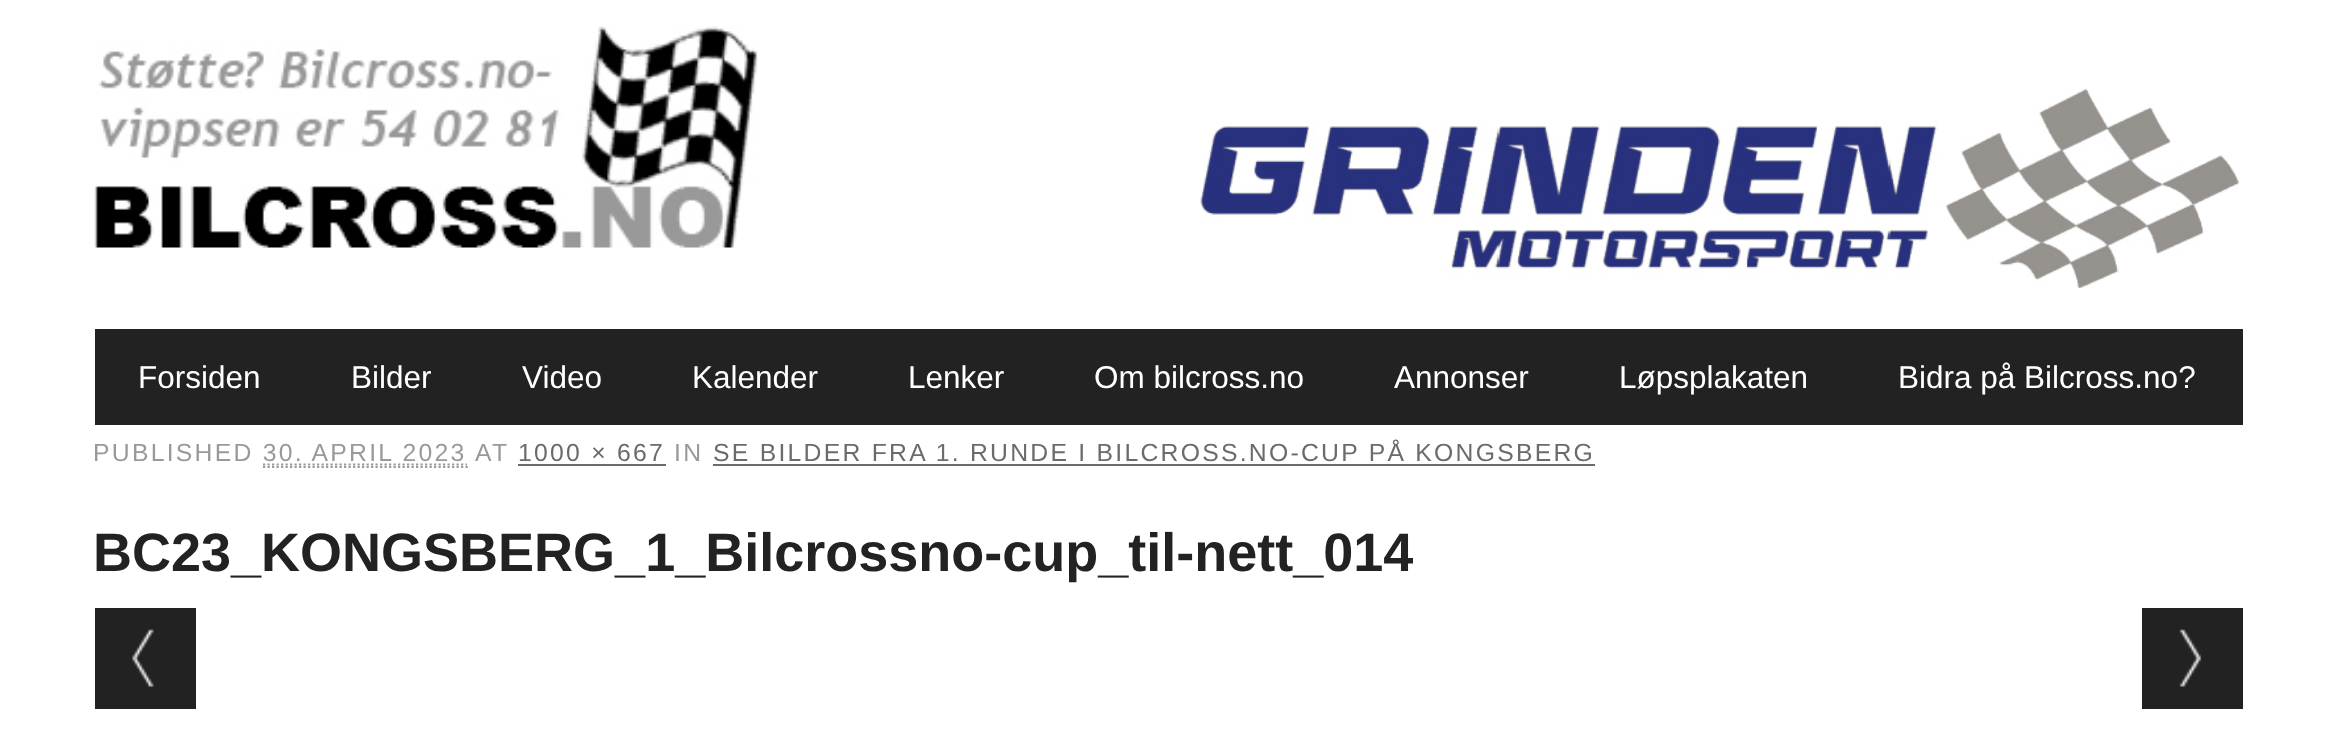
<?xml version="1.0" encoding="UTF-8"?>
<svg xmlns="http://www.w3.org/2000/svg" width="2336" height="731">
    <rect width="100%" height="100%" fill="#FFFFFF"/>
    <image x="94" y="26" width="664" height="222" href="img_01.png"/>
    <image x="1200" y="88" width="1040" height="201" href="img_02.png"/>
    <rect x="95" y="329" width="2148" height="96" fill="#222222"/>
    <text x="138" y="388" font-family="Liberation Sans" font-size="31.5" fill="#FFFFFF">Forsiden</text>
    <text x="351" y="388" font-family="Liberation Sans" font-size="31.5" fill="#FFFFFF">Bilder</text>
    <text x="522" y="388" font-family="Liberation Sans" font-size="31.5" fill="#FFFFFF">Video</text>
    <text x="692" y="388" font-family="Liberation Sans" font-size="31.5" fill="#FFFFFF">Kalender</text>
    <text x="908" y="388" font-family="Liberation Sans" font-size="31.5" fill="#FFFFFF">Lenker</text>
    <text x="1094" y="388" font-family="Liberation Sans" font-size="31.5" fill="#FFFFFF">Om bilcross.no</text>
    <text x="1394" y="388" font-family="Liberation Sans" font-size="31.5" fill="#FFFFFF">Annonser</text>
    <text x="1619" y="388" font-family="Liberation Sans" font-size="31.5" fill="#FFFFFF">Løpsplakaten</text>
    <text x="1898" y="388" font-family="Liberation Sans" font-size="31.5" fill="#FFFFFF">Bidra på Bilcross.no?</text>
    <text x="93" y="461" font-family="Liberation Sans" font-size="24.75" letter-spacing="2.25" fill="#999999">PUBLISHED 30. APRIL 2023</text>
    <text x="475" y="461" font-family="Liberation Sans" font-size="24.75" letter-spacing="2.25" fill="#999999">AT</text>
    <text x="518" y="461" font-family="Liberation Sans" font-size="24.75" letter-spacing="2.25" fill="#6B6B6B">1000 × 667</text>
    <rect x="518" y="464" width="148" height="2" fill="#6B6B6B"/>
    <text x="674" y="461" font-family="Liberation Sans" font-size="24.75" letter-spacing="2.25" fill="#999999">IN</text>
    <text x="713" y="461" font-family="Liberation Sans" font-size="24.75" letter-spacing="2.25" fill="#6B6B6B">SE BILDER FRA 1. RUNDE I BILCROSS.NO-CUP PÅ KONGSBERG</text>
    <rect x="713" y="464" width="882" height="2" fill="#6B6B6B"/>
    <path d="M 263 467 H 468" fill="none" stroke="#999999" stroke-width="2.2" stroke-dasharray="2.25 2.25"/>
    <path d="M 263 464.5 H 467" fill="none" stroke="#999999" stroke-width="2.2" stroke-dasharray="2.25 2.25"/>
    <text x="93" y="571" font-family="Liberation Sans" font-size="54" font-weight="700" fill="#222222">BC23_KONGSBERG_1_Bilcrossno-cup_til-nett_014</text>
    <rect x="95" y="608" width="101" height="101" fill="#222222"/>
    <image x="132" y="629" width="22" height="58" href="img_03.png"/>
    <rect x="2142" y="608" width="101" height="101" fill="#222222"/>
    <image x="2179" y="629" width="23" height="58" href="img_04.png"/>
</svg>
